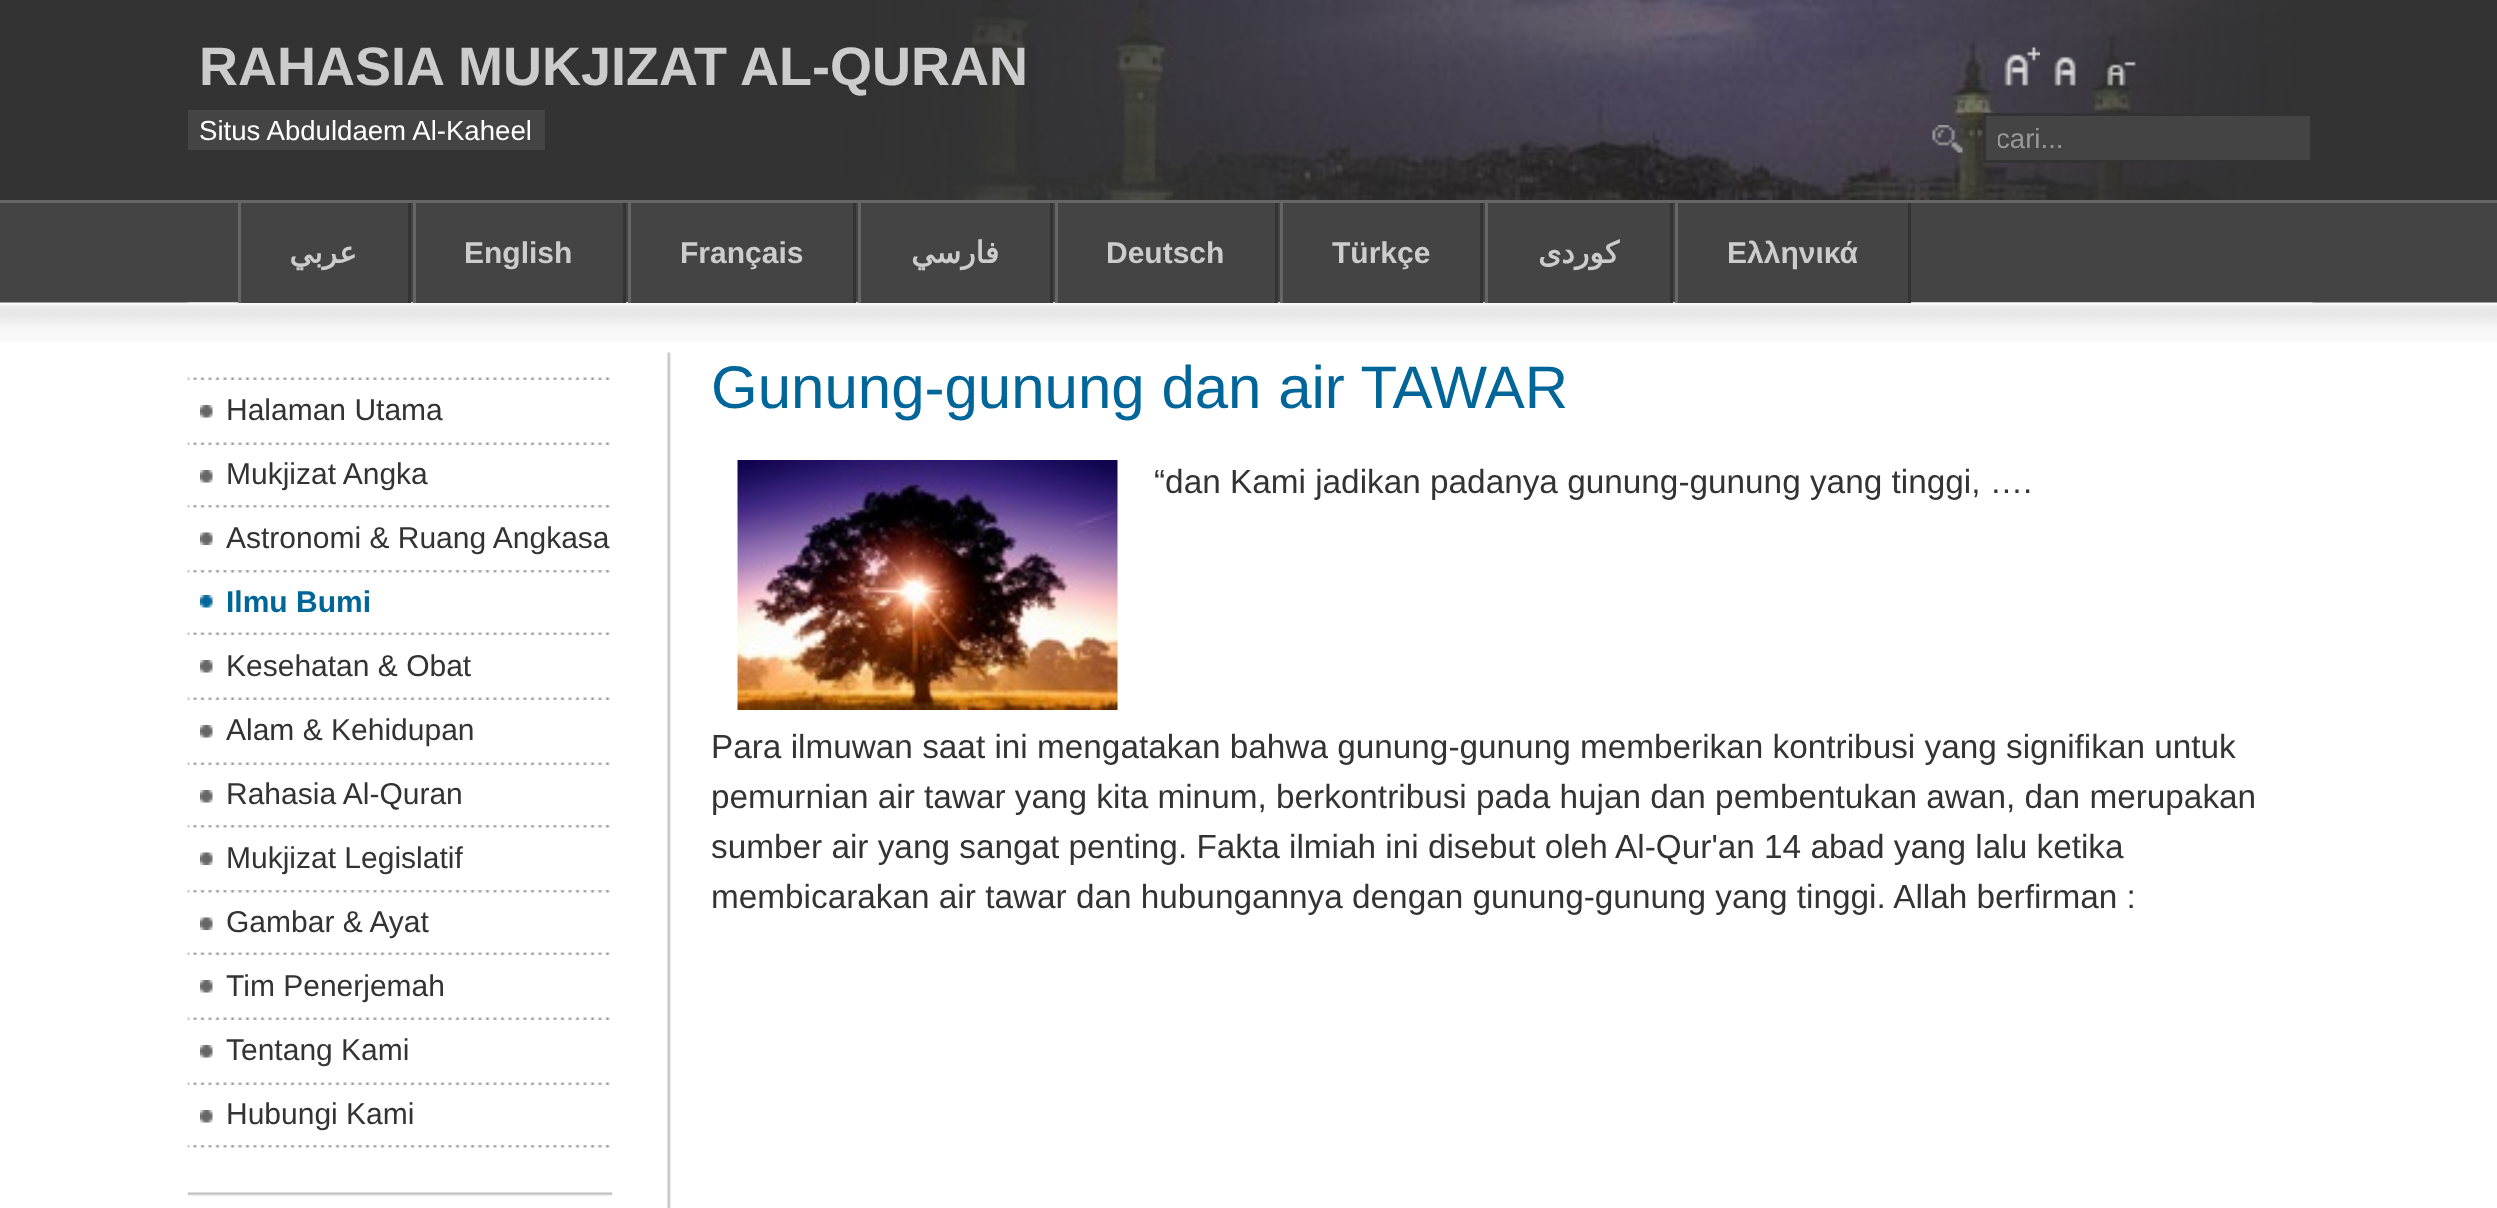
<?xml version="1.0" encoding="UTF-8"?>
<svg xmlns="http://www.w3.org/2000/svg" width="2497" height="1208">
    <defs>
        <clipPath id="clip1"><rect x="1998" y="123" width="300" height="30"/></clipPath>
    </defs>
    <rect width="100%" height="100%" fill="#FFFFFF"/>
    <rect x="0" y="0" width="2497" height="200" fill="#333333"/>
    <image x="824" y="0" width="1482" height="200" href="img_01.png"/>
    <image x="812" y="0" width="1501" height="200" href="img_02.png"/>
    <text x="199" y="85" font-family="Liberation Sans" font-size="54" font-weight="700" fill="#CCCCCC">RAHASIA MUKJIZAT AL-QURAN</text>
    <image x="2004" y="47" width="36" height="39" href="img_03.png"/>
    <image x="2054" y="56" width="22" height="30" href="img_04.png"/>
    <image x="2106" y="61" width="30" height="25" href="img_05.png"/>
    <rect x="188" y="110" width="357" height="40" fill="#444444"/>
    <text x="199" y="140" font-family="Liberation Sans" font-size="27.6" fill="#FFFFFF">Situs Abduldaem Al-Kaheel</text>
    <image x="1932" y="125" width="31" height="28" href="img_06.png"/>
    <rect x="1984.5" y="114.5" width="327" height="47" fill="#444444" stroke="#333333" stroke-width="3"/>
    <g clip-path="url(#clip1)">
        <text x="1996" y="148" font-family="Liberation Sans" font-size="27.6" fill="#999999">cari...</text>
    </g>
    <rect x="0" y="203" width="2497" height="100" fill="#444444"/>
    <rect x="0" y="200" width="2497" height="3" fill="#666666"/>
    <image x="0" y="302" width="2497" height="40" href="img_07.png"/>
    <image x="187" y="302" width="2126" height="1" href="img_08.png"/>
    <rect x="241" y="302" width="167" height="1" fill="#444444"/>
    <rect x="408" y="203" width="3" height="100" fill="#333333"/>
    <rect x="238" y="203" width="3" height="100" fill="#666666"/>
    <text x="357" y="263" font-family="DejaVu Sans" font-size="30" font-weight="700" direction="rtl" fill="#CCCCCC">عربي</text>
    <rect x="416" y="302" width="207" height="1" fill="#444444"/>
    <rect x="623" y="203" width="3" height="100" fill="#333333"/>
    <rect x="413" y="203" width="3" height="100" fill="#666666"/>
    <text x="464" y="263" font-family="Liberation Sans" font-size="30" font-weight="700" fill="#CCCCCC">English</text>
    <rect x="631" y="302" width="222" height="1" fill="#444444"/>
    <rect x="853" y="203" width="3" height="100" fill="#333333"/>
    <rect x="628" y="203" width="3" height="100" fill="#666666"/>
    <text x="680" y="263" font-family="Liberation Sans" font-size="30" font-weight="700" fill="#CCCCCC">Français</text>
    <rect x="861" y="302" width="189" height="1" fill="#444444"/>
    <rect x="1050" y="203" width="3" height="100" fill="#333333"/>
    <rect x="858" y="203" width="3" height="100" fill="#666666"/>
    <text x="999" y="263" font-family="DejaVu Sans" font-size="30" font-weight="700" direction="rtl" fill="#CCCCCC">فارسي</text>
    <rect x="1058" y="302" width="217" height="1" fill="#444444"/>
    <rect x="1275" y="203" width="3" height="100" fill="#333333"/>
    <rect x="1055" y="203" width="3" height="100" fill="#666666"/>
    <text x="1106" y="263" font-family="Liberation Sans" font-size="30" font-weight="700" fill="#CCCCCC">Deutsch</text>
    <rect x="1283" y="302" width="197" height="1" fill="#444444"/>
    <rect x="1480" y="203" width="3" height="100" fill="#333333"/>
    <rect x="1280" y="203" width="3" height="100" fill="#666666"/>
    <text x="1332" y="263" font-family="Liberation Sans" font-size="30" font-weight="700" fill="#CCCCCC">Türkçe</text>
    <rect x="1488" y="302" width="182" height="1" fill="#444444"/>
    <rect x="1670" y="203" width="3" height="100" fill="#333333"/>
    <rect x="1485" y="203" width="3" height="100" fill="#666666"/>
    <text x="1619" y="263" font-family="DejaVu Sans" font-size="30" font-weight="700" direction="rtl" fill="#CCCCCC">كوردى</text>
    <rect x="1678" y="302" width="230" height="1" fill="#444444"/>
    <rect x="1908" y="203" width="3" height="100" fill="#333333"/>
    <rect x="1675" y="203" width="3" height="100" fill="#666666"/>
    <text x="1727" y="263" font-family="Liberation Sans" font-size="30" font-weight="700" fill="#CCCCCC">Ελληνικά</text>
    <image x="667" y="352" width="4" height="856" href="img_09.png"/>
    <image x="187" y="1192" width="426" height="4" href="img_10.png"/>
    <image x="187" y="377" width="423" height="3" href="img_11.png"/>
    <image x="187" y="442" width="423" height="3" href="img_11.png"/>
    <image x="200" y="405" width="13" height="13" href="img_12.png"/>
    <text x="226" y="420" font-family="Liberation Sans" font-size="30" fill="#333333">Halaman Utama</text>
    <image x="187" y="505" width="423" height="3" href="img_13.png"/>
    <image x="200" y="470" width="13" height="13" href="img_12.png"/>
    <text x="226" y="484" font-family="Liberation Sans" font-size="30" fill="#333333">Mukjizat Angka</text>
    <image x="187" y="570" width="423" height="3" href="img_13.png"/>
    <image x="200" y="532" width="13" height="13" href="img_14.png"/>
    <text x="226" y="548" font-family="Liberation Sans" font-size="30" fill="#333333">Astronomi &amp; Ruang Angkasa</text>
    <image x="187" y="632" width="423" height="3" href="img_11.png"/>
    <image x="200" y="595" width="13" height="13" href="img_15.png"/>
    <text x="226" y="612" font-family="Liberation Sans" font-size="30" font-weight="700" fill="#006699">Ilmu Bumi</text>
    <image x="187" y="697" width="423" height="3" href="img_11.png"/>
    <image x="200" y="660" width="13" height="13" href="img_12.png"/>
    <text x="226" y="676" font-family="Liberation Sans" font-size="30" fill="#333333">Kesehatan &amp; Obat</text>
    <image x="187" y="762" width="423" height="3" href="img_11.png"/>
    <image x="200" y="725" width="13" height="13" href="img_12.png"/>
    <text x="226" y="740" font-family="Liberation Sans" font-size="30" fill="#333333">Alam &amp; Kehidupan</text>
    <image x="187" y="825" width="423" height="3" href="img_13.png"/>
    <image x="200" y="790" width="13" height="13" href="img_12.png"/>
    <text x="226" y="804" font-family="Liberation Sans" font-size="30" fill="#333333">Rahasia Al-Quran</text>
    <image x="187" y="890" width="423" height="3" href="img_13.png"/>
    <image x="200" y="852" width="13" height="13" href="img_14.png"/>
    <text x="226" y="868" font-family="Liberation Sans" font-size="30" fill="#333333">Mukjizat Legislatif</text>
    <image x="187" y="952" width="423" height="3" href="img_11.png"/>
    <image x="200" y="917" width="13" height="13" href="img_14.png"/>
    <text x="226" y="932" font-family="Liberation Sans" font-size="30" fill="#333333">Gambar &amp; Ayat</text>
    <image x="187" y="1017" width="423" height="3" href="img_11.png"/>
    <image x="200" y="980" width="13" height="13" href="img_12.png"/>
    <text x="226" y="996" font-family="Liberation Sans" font-size="30" fill="#333333">Tim Penerjemah</text>
    <image x="187" y="1082" width="423" height="3" href="img_11.png"/>
    <image x="200" y="1045" width="13" height="13" href="img_12.png"/>
    <text x="226" y="1060" font-family="Liberation Sans" font-size="30" fill="#333333">Tentang Kami</text>
    <image x="187" y="1145" width="423" height="3" href="img_13.png"/>
    <image x="200" y="1110" width="13" height="13" href="img_12.png"/>
    <text x="226" y="1124" font-family="Liberation Sans" font-size="30" fill="#333333">Hubungi Kami</text>
    <text x="711" y="408" font-family="Liberation Sans" font-size="60" fill="#006699">Gunung-gunung dan air TAWAR</text>
    <image x="737" y="460" width="381" height="250" href="img_16.png"/>
    <text x="1154" y="493" font-family="Liberation Sans" font-size="33.35" fill="#333333">“dan Kami jadikan padanya gunung-gunung yang tinggi, ….</text>
    <text font-family="Liberation Sans" font-size="33.35" fill="#333333">
        <tspan x="711" y="758">Para ilmuwan saat ini mengatakan bahwa gunung-gunung memberikan kontribusi yang signifikan untuk</tspan>
        <tspan x="711" y="808">pemurnian air tawar yang kita minum, berkontribusi pada hujan dan pembentukan awan, dan merupakan</tspan>
        <tspan x="711" y="858">sumber air yang sangat penting. Fakta ilmiah ini disebut oleh Al-Qur'an 14 abad yang lalu ketika</tspan>
        <tspan x="711" y="908">membicarakan air tawar dan hubungannya dengan gunung-gunung yang tinggi. Allah berfirman :</tspan>
    </text>
</svg>
